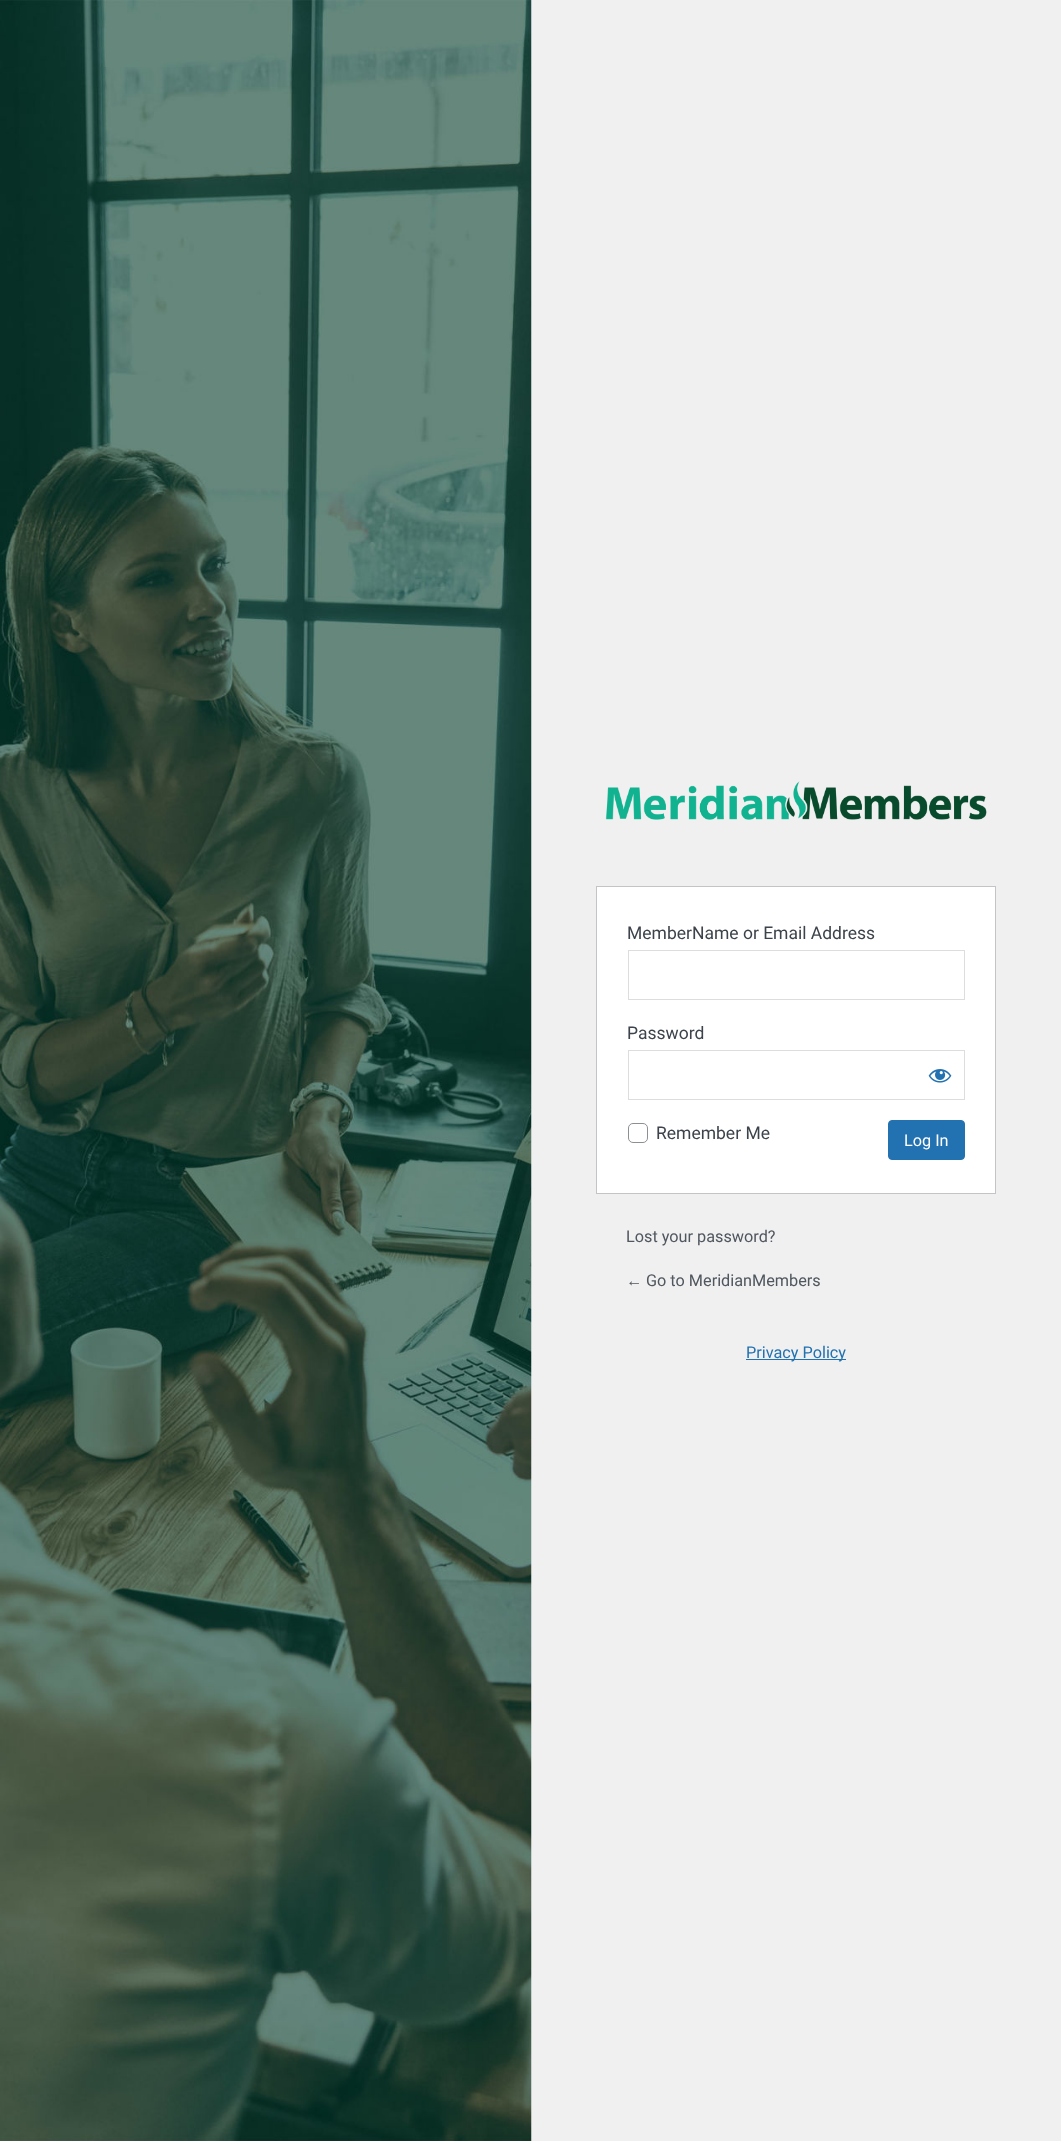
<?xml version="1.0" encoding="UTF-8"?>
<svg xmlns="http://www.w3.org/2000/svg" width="1061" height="2141">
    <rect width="100%" height="100%" fill="#F0F0F1"/>
    <image x="0" y="0" width="532" height="2141" href="img_01.png"/>
    <image x="605" y="781" width="382" height="39" href="img_02.png"/>
    <rect x="596.5" y="886.5" width="399" height="307" fill="#FFFFFF" stroke="#C3C4C7"/>
    <text x="627" y="939" font-family="Roboto" font-size="17.5" fill="#3C434A">MemberName or Email Address</text>
    <rect x="628.5" y="950.5" width="336" height="49" fill="none" stroke="#DDDDDD"/>
    <text x="627" y="1039" font-family="Roboto" font-size="17.5" fill="#3C434A">Password</text>
    <rect x="628.5" y="1050.5" width="336" height="49" fill="none" stroke="#DDDDDD"/>
    <image x="928" y="1069" width="24" height="14" href="img_03.png"/>
    <rect x="628.5" y="1123.5" width="19" height="19" rx="4.5" fill="none" stroke="#8C8F94"/>
    <text x="656" y="1139" font-family="Roboto" font-size="17.5" fill="#3C434A">Remember Me</text>
    <rect x="888.5" y="1120.5" width="76" height="39" rx="3.5" fill="#2271B1" stroke="#2271B1"/>
    <text x="904" y="1146" font-family="Roboto" font-size="16.25" fill="#FFFFFF">Log In</text>
    <text x="626" y="1242" font-family="Roboto" font-size="16.25" fill="#50575E">Lost your password?</text>
    <text x="626" y="1286" font-family="Liberation Sans" font-size="16.25" fill="#50575E">←</text>
    <text x="646" y="1286" font-family="Roboto" font-size="16.25" fill="#50575E">Go to MeridianMembers</text>
    <rect x="746" y="1359" width="100" height="1" fill="#2271B1"/>
    <text x="746" y="1358" font-family="Roboto" font-size="16.25" fill="#2271B1">Privacy Policy</text>
</svg>
